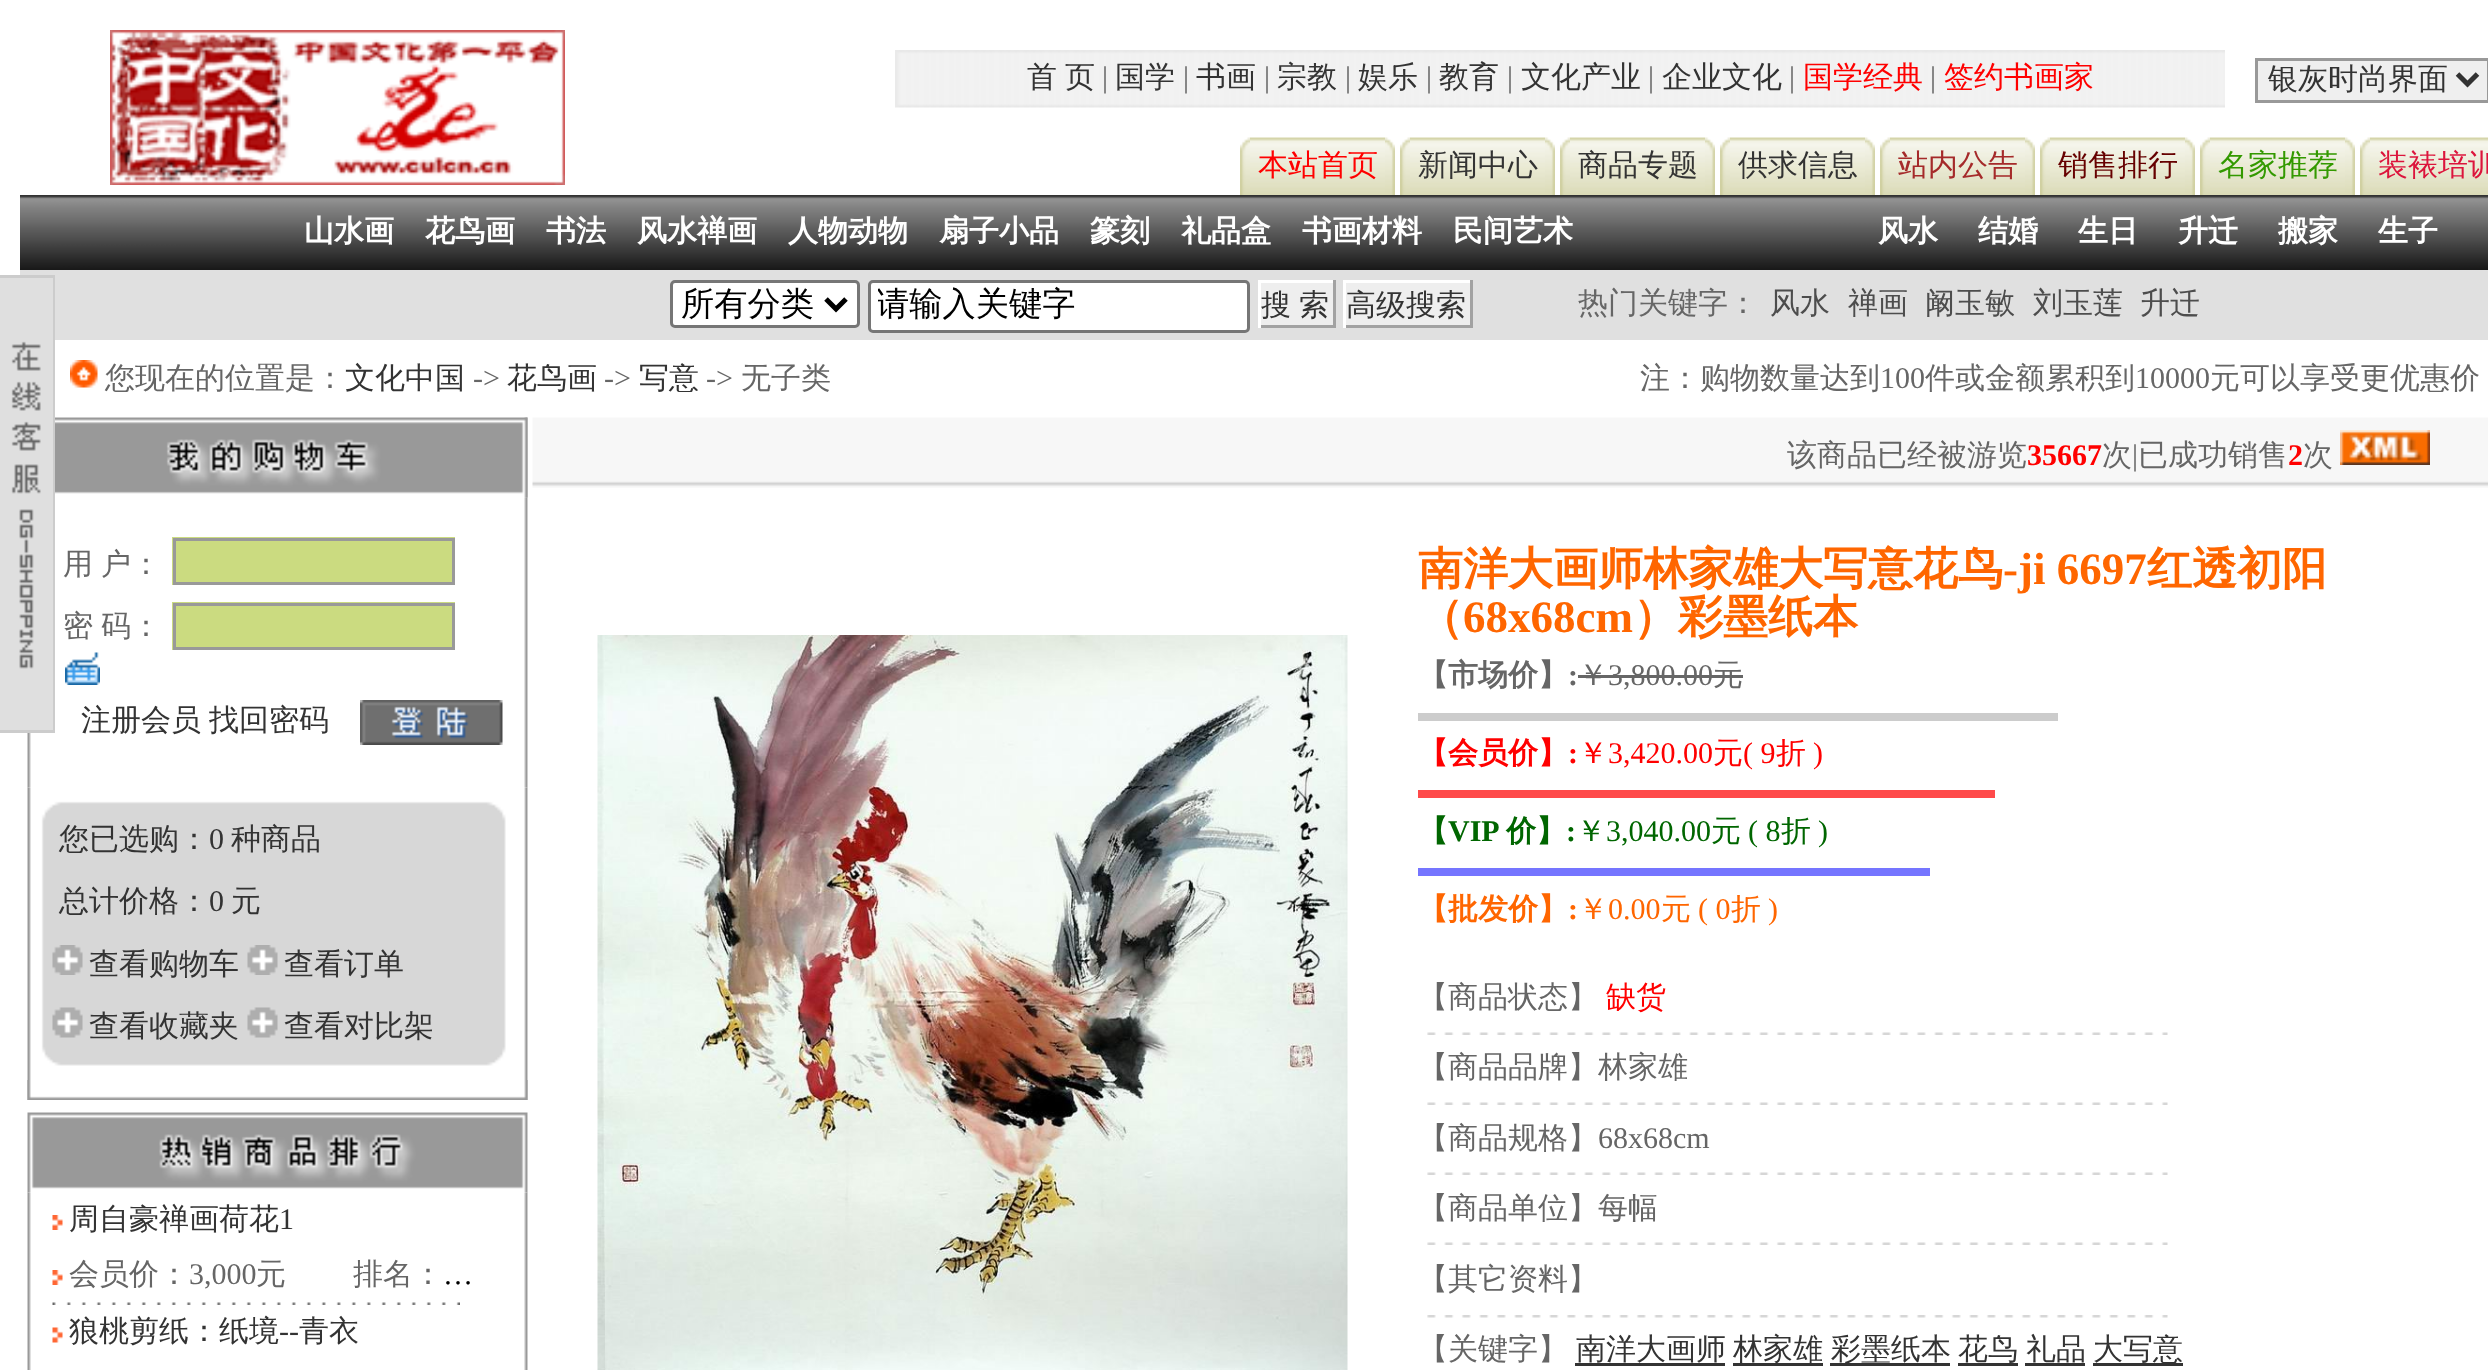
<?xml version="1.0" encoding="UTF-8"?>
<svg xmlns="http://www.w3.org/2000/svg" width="2488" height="1370">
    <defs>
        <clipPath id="clip1"><rect x="878" y="285" width="362" height="43"/></clipPath>
    </defs>
    <rect width="100%" height="100%" fill="#FFFFFF"/>
    <image x="110" y="30" width="455" height="155" href="img_01.png"/>
    <image x="895" y="50" width="1330" height="58" href="img_02.png"/>
    <text x="1027" y="87" word-spacing="-1" font-family="WenQuanYi Zen Hei" font-size="30" font-weight="500" fill="#333333">首 页</text>
    <text x="1102" y="87" font-family="Liberation Serif" font-size="30" fill="#666666">|</text>
    <text x="1115" y="87" font-family="WenQuanYi Zen Hei" font-size="30" font-weight="500" fill="#333333">国学</text>
    <text x="1183" y="87" font-family="Liberation Serif" font-size="30" fill="#666666">|</text>
    <text x="1196" y="87" font-family="WenQuanYi Zen Hei" font-size="30" font-weight="500" fill="#333333">书画</text>
    <text x="1264" y="87" font-family="Liberation Serif" font-size="30" fill="#666666">|</text>
    <text x="1277" y="87" font-family="WenQuanYi Zen Hei" font-size="30" font-weight="500" fill="#333333">宗教</text>
    <text x="1345" y="87" font-family="Liberation Serif" font-size="30" fill="#666666">|</text>
    <text x="1358" y="87" font-family="WenQuanYi Zen Hei" font-size="30" font-weight="500" fill="#333333">娱乐</text>
    <text x="1426" y="87" font-family="Liberation Serif" font-size="30" fill="#666666">|</text>
    <text x="1439" y="87" font-family="WenQuanYi Zen Hei" font-size="30" font-weight="500" fill="#333333">教育</text>
    <text x="1507" y="87" font-family="Liberation Serif" font-size="30" fill="#666666">|</text>
    <text x="1521" y="87" font-family="WenQuanYi Zen Hei" font-size="30" font-weight="500" fill="#333333">文化产业</text>
    <text x="1648" y="87" font-family="Liberation Serif" font-size="30" fill="#666666">|</text>
    <text x="1662" y="87" font-family="WenQuanYi Zen Hei" font-size="30" font-weight="500" fill="#333333">企业文化</text>
    <text x="1789" y="87" font-family="Liberation Serif" font-size="30" fill="#666666">|</text>
    <text x="1803" y="87" font-family="WenQuanYi Zen Hei" font-size="30" font-weight="500" fill="#FF0000">国学经典</text>
    <text x="1930" y="87" font-family="Liberation Serif" font-size="30" fill="#666666">|</text>
    <text x="1944" y="87" font-family="WenQuanYi Zen Hei" font-size="30" font-weight="500" fill="#FF0000">签约书画家</text>
    <rect x="2256.5" y="59.5" width="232" height="42" fill="#EFEFEF" stroke="#999999" stroke-width="3"/>
    <path d="M 2457.5 74 L 2467.5 84 L 2477.5 74" fill="none" stroke="#333333" stroke-width="5"/>
    <text x="2268" y="89" font-family="WenQuanYi Zen Hei" font-size="30" font-weight="500" fill="#333333">银灰时尚界面</text>
    <image x="1240" y="137" width="10" height="58" href="img_03.png"/>
    <image x="1250" y="137" width="135" height="58" href="img_04.png"/>
    <text x="1258" y="175" font-family="WenQuanYi Zen Hei" font-size="30" font-weight="500" fill="#FF0000">本站首页</text>
    <image x="1385" y="137" width="10" height="58" href="img_05.png"/>
    <image x="1400" y="137" width="10" height="58" href="img_03.png"/>
    <image x="1410" y="137" width="135" height="58" href="img_04.png"/>
    <text x="1418" y="175" font-family="WenQuanYi Zen Hei" font-size="30" font-weight="500" fill="#333333">新闻中心</text>
    <image x="1545" y="137" width="10" height="58" href="img_06.png"/>
    <image x="1560" y="137" width="10" height="58" href="img_07.png"/>
    <image x="1570" y="137" width="135" height="58" href="img_04.png"/>
    <text x="1578" y="175" font-family="WenQuanYi Zen Hei" font-size="30" font-weight="500" fill="#333333">商品专题</text>
    <image x="1705" y="137" width="10" height="58" href="img_06.png"/>
    <image x="1720" y="137" width="10" height="58" href="img_07.png"/>
    <image x="1730" y="137" width="135" height="58" href="img_04.png"/>
    <text x="1738" y="175" font-family="WenQuanYi Zen Hei" font-size="30" font-weight="500" fill="#333333">供求信息</text>
    <image x="1865" y="137" width="10" height="58" href="img_05.png"/>
    <image x="1880" y="137" width="10" height="58" href="img_03.png"/>
    <image x="1890" y="137" width="135" height="58" href="img_04.png"/>
    <text x="1898" y="175" font-family="WenQuanYi Zen Hei" font-size="30" font-weight="500" fill="#A52A2A">站内公告</text>
    <image x="2025" y="137" width="10" height="58" href="img_06.png"/>
    <image x="2040" y="137" width="10" height="58" href="img_03.png"/>
    <image x="2050" y="137" width="135" height="58" href="img_04.png"/>
    <text x="2058" y="175" font-family="WenQuanYi Zen Hei" font-size="30" font-weight="500" fill="#660000">销售排行</text>
    <image x="2185" y="137" width="10" height="58" href="img_05.png"/>
    <image x="2200" y="137" width="10" height="58" href="img_07.png"/>
    <image x="2210" y="137" width="135" height="58" href="img_04.png"/>
    <text x="2218" y="175" font-family="WenQuanYi Zen Hei" font-size="30" font-weight="500" fill="#339900">名家推荐</text>
    <image x="2345" y="137" width="10" height="58" href="img_05.png"/>
    <image x="2360" y="137" width="10" height="58" href="img_03.png"/>
    <image x="2370" y="137" width="118" height="58" href="img_08.png"/>
    <text x="2378" y="175" font-family="WenQuanYi Zen Hei" font-size="30" font-weight="500" fill="#DC143C">装裱培训</text>
    <image x="20" y="195" width="2468" height="75" href="img_09.png"/>
    <text x="304" y="241" font-family="WenQuanYi Zen Hei" font-size="30" font-weight="700" fill="#FFFFFF">山水画</text>
    <text x="425" y="241" font-family="WenQuanYi Zen Hei" font-size="30" font-weight="700" fill="#FFFFFF">花鸟画</text>
    <text x="546" y="241" font-family="WenQuanYi Zen Hei" font-size="30" font-weight="700" fill="#FFFFFF">书法</text>
    <text x="637" y="241" font-family="WenQuanYi Zen Hei" font-size="30" font-weight="700" fill="#FFFFFF">风水禅画</text>
    <text x="788" y="241" font-family="WenQuanYi Zen Hei" font-size="30" font-weight="700" fill="#FFFFFF">人物动物</text>
    <text x="939" y="241" font-family="WenQuanYi Zen Hei" font-size="30" font-weight="700" fill="#FFFFFF">扇子小品</text>
    <text x="1090" y="241" font-family="WenQuanYi Zen Hei" font-size="30" font-weight="700" fill="#FFFFFF">篆刻</text>
    <text x="1181" y="241" font-family="WenQuanYi Zen Hei" font-size="30" font-weight="700" fill="#FFFFFF">礼品盒</text>
    <text x="1302" y="241" font-family="WenQuanYi Zen Hei" font-size="30" font-weight="700" fill="#FFFFFF">书画材料</text>
    <text x="1453" y="241" font-family="WenQuanYi Zen Hei" font-size="30" font-weight="700" fill="#FFFFFF">民间艺术</text>
    <text x="1878" y="241" font-family="WenQuanYi Zen Hei" font-size="30" font-weight="700" fill="#FFFFFF">风水</text>
    <text x="1978" y="241" font-family="WenQuanYi Zen Hei" font-size="30" font-weight="700" fill="#FFFFFF">结婚</text>
    <text x="2078" y="241" font-family="WenQuanYi Zen Hei" font-size="30" font-weight="700" fill="#FFFFFF">生日</text>
    <text x="2178" y="241" font-family="WenQuanYi Zen Hei" font-size="30" font-weight="700" fill="#FFFFFF">升迁</text>
    <text x="2278" y="241" font-family="WenQuanYi Zen Hei" font-size="30" font-weight="700" fill="#FFFFFF">搬家</text>
    <text x="2378" y="241" font-family="WenQuanYi Zen Hei" font-size="30" font-weight="700" fill="#FFFFFF">生子</text>
    <rect x="20" y="270" width="2468" height="70" fill="#E0E0E0"/>
    <rect x="671.5" y="281.5" width="187" height="45" rx="3.5" fill="#FFFFFF" stroke="#767676" stroke-width="3"/>
    <path d="M 826 299 L 836 309 L 846 299" fill="none" stroke="#000000" stroke-width="5"/>
    <text x="681" y="315" font-family="WenQuanYi Zen Hei" font-size="33.25" font-weight="500" fill="#000000">所有分类</text>
    <rect x="869.5" y="281.5" width="379" height="50" rx="3.5" fill="#FFFFFF" stroke="#767676" stroke-width="3"/>
    <g clip-path="url(#clip1)">
        <text x="876" y="315" font-family="WenQuanYi Zen Hei" font-size="33.25" font-weight="500" fill="#000000">请输入关键字</text>
    </g>
    <rect x="1261" y="283" width="72" height="42" fill="#EEEEEE"/>
    <rect x="1258" y="280" width="77" height="3" fill="#FFFFFF"/>
    <rect x="1333" y="280" width="3" height="48" fill="#A2A2A2"/>
    <rect x="1258" y="325" width="77" height="3" fill="#A2A2A2"/>
    <rect x="1258" y="280" width="3" height="48" fill="#FFFFFF"/>
    <text x="1261" y="315" word-spacing="-1" font-family="WenQuanYi Zen Hei" font-size="30" font-weight="500" fill="#333333">搜 索</text>
    <rect x="1346" y="283" width="124" height="42" fill="#EEEEEE"/>
    <rect x="1343" y="280" width="130" height="3" fill="#FFFFFF"/>
    <rect x="1470" y="280" width="3" height="48" fill="#A2A2A2"/>
    <rect x="1343" y="325" width="130" height="3" fill="#A2A2A2"/>
    <rect x="1343" y="280" width="3" height="48" fill="#FFFFFF"/>
    <text x="1346" y="315" font-family="WenQuanYi Zen Hei" font-size="30" font-weight="500" fill="#333333">高级搜索</text>
    <text x="1578" y="313" font-family="WenQuanYi Zen Hei" font-size="30" font-weight="500" fill="#666666">热门关键字：</text>
    <text x="1770" y="313" font-family="WenQuanYi Zen Hei" font-size="30" font-weight="500" fill="#4D4D4D">风水</text>
    <text x="1848" y="313" font-family="WenQuanYi Zen Hei" font-size="30" font-weight="500" fill="#4D4D4D">禅画</text>
    <text x="1925" y="313" font-family="WenQuanYi Zen Hei" font-size="30" font-weight="500" fill="#4D4D4D">阚玉敏</text>
    <text x="2033" y="313" font-family="WenQuanYi Zen Hei" font-size="30" font-weight="500" fill="#4D4D4D">刘玉莲</text>
    <text x="2140" y="313" font-family="WenQuanYi Zen Hei" font-size="30" font-weight="500" fill="#4D4D4D">升迁</text>
    <image x="55" y="417" width="473" height="81" href="img_12.png"/>
    <image x="27" y="497" width="501" height="291" href="img_14.png"/>
    <rect x="0" y="275" width="55" height="458" fill="#CCCCCC"/>
    <rect x="0" y="278" width="53" height="452" fill="#DFDFDF"/>
    <image x="11" y="341" width="30" height="328" href="img_10.png"/>
    <image x="70" y="360" width="28" height="28" href="img_11.png"/>
    <text x="105" y="388" font-family="WenQuanYi Zen Hei" font-size="30" font-weight="500" fill="#666666">您现在的位置是：</text>
    <text x="345" y="388" font-family="WenQuanYi Zen Hei" font-size="30" font-weight="500" fill="#333333">文化中国</text>
    <text x="473" y="388" font-family="Liberation Serif" font-size="30" fill="#666666">-&gt;</text>
    <text x="507" y="388" font-family="WenQuanYi Zen Hei" font-size="30" font-weight="500" fill="#333333">花鸟画</text>
    <text x="604" y="388" font-family="Liberation Serif" font-size="30" fill="#666666">-&gt;</text>
    <text x="639" y="388" font-family="WenQuanYi Zen Hei" font-size="30" font-weight="500" fill="#333333">写意</text>
    <text x="706" y="388" font-family="Liberation Serif" font-size="30" fill="#666666">-&gt;</text>
    <text x="741" y="388" font-family="WenQuanYi Zen Hei" font-size="30" font-weight="500" fill="#666666">无子类</text>
    <text x="1640" y="388" font-family="WenQuanYi Zen Hei" font-size="30" font-weight="500" fill="#666666">注：购物数量达到</text>
    <text x="1880" y="388" font-family="Liberation Serif" font-size="30" fill="#666666">100</text>
    <text x="1925" y="388" font-family="WenQuanYi Zen Hei" font-size="30" font-weight="500" fill="#666666">件或金额累积到</text>
    <text x="2135" y="388" font-family="Liberation Serif" font-size="30" fill="#666666">10000</text>
    <text x="2210" y="388" font-family="WenQuanYi Zen Hei" font-size="30" font-weight="500" fill="#666666">元可以享受更优惠价</text>
    <image x="55" y="417" width="473" height="81" href="img_13.png"/>
    <text x="63" y="574" word-spacing="-1" font-family="WenQuanYi Zen Hei" font-size="30" font-weight="500" fill="#666666">用 户：</text>
    <rect x="172" y="537" width="283" height="48" fill="#CBDB80"/>
    <rect x="174.5" y="539.5" width="279" height="44" fill="none" stroke="#999999" stroke-width="3"/>
    <text x="63" y="636" word-spacing="-1" font-family="WenQuanYi Zen Hei" font-size="30" font-weight="500" fill="#666666">密 码：</text>
    <rect x="172" y="602" width="283" height="48" fill="#CBDB80"/>
    <rect x="174.5" y="604.5" width="279" height="44" fill="none" stroke="#999999" stroke-width="3"/>
    <image x="65" y="652" width="35" height="33" href="img_15.png"/>
    <text x="81" y="730" font-family="WenQuanYi Zen Hei" font-size="30" font-weight="500" fill="#333333">注册会员</text>
    <text x="209" y="730" font-family="WenQuanYi Zen Hei" font-size="30" font-weight="500" fill="#333333">找回密码</text>
    <image x="360" y="700" width="143" height="45" href="img_16.png"/>
    <image x="27" y="787" width="501" height="293" href="img_17.png"/>
    <text x="59" y="849" font-family="WenQuanYi Zen Hei" font-size="30" font-weight="500" fill="#333333">您已选购：</text>
    <text x="209" y="849" font-family="Liberation Serif" font-size="30" fill="#333333">0</text>
    <text x="231" y="849" font-family="WenQuanYi Zen Hei" font-size="30" font-weight="500" fill="#333333">种商品</text>
    <text x="59" y="911" font-family="WenQuanYi Zen Hei" font-size="30" font-weight="500" fill="#333333">总计价格：</text>
    <text x="209" y="911" font-family="Liberation Serif" font-size="30" fill="#333333">0</text>
    <text x="231" y="911" font-family="WenQuanYi Zen Hei" font-size="30" font-weight="500" fill="#333333">元</text>
    <image x="52" y="945" width="31" height="30" href="img_18.png"/>
    <text x="89" y="974" font-family="WenQuanYi Zen Hei" font-size="30" font-weight="500" fill="#333333">查看购物车</text>
    <image x="247" y="945" width="31" height="30" href="img_19.png"/>
    <text x="284" y="974" font-family="WenQuanYi Zen Hei" font-size="30" font-weight="500" fill="#333333">查看订单</text>
    <image x="52" y="1007" width="31" height="31" href="img_20.png"/>
    <text x="89" y="1036" font-family="WenQuanYi Zen Hei" font-size="30" font-weight="500" fill="#333333">查看收藏夹</text>
    <image x="247" y="1007" width="31" height="31" href="img_21.png"/>
    <text x="284" y="1036" font-family="WenQuanYi Zen Hei" font-size="30" font-weight="500" fill="#333333">查看对比架</text>
    <image x="27" y="1080" width="501" height="20" href="img_22.png"/>
    <image x="27" y="1080" width="501" height="20" href="img_23.png"/>
    <image x="27" y="1192" width="501" height="178" href="img_25.png"/>
    <image x="27" y="1112" width="501" height="81" href="img_24.png"/>
    <image x="52" y="1215" width="11" height="15" href="img_26.png"/>
    <text x="69" y="1229" font-family="WenQuanYi Zen Hei" font-size="30" font-weight="500" fill="#333333">周自豪禅画荷花</text>
    <text x="279" y="1229" font-family="Liberation Serif" font-size="30" fill="#333333">1</text>
    <image x="52" y="1270" width="11" height="15" href="img_26.png"/>
    <text x="69" y="1284" font-family="WenQuanYi Zen Hei" font-size="30" font-weight="500" fill="#666666">会员价：</text>
    <text x="189" y="1284" font-family="Liberation Serif" font-size="30" fill="#666666">3,000</text>
    <text x="256" y="1284" font-family="WenQuanYi Zen Hei" font-size="30" font-weight="500" fill="#666666">元</text>
    <text x="353" y="1284" font-family="WenQuanYi Zen Hei" font-size="30" font-weight="500" fill="#666666">排名：</text>
    <text x="443" y="1284" font-family="Liberation Serif" font-size="30" fill="#000000">…</text>
    <image x="52" y="1302" width="408" height="3" href="img_27.png"/>
    <image x="52" y="1327" width="11" height="16" href="img_28.png"/>
    <text x="69" y="1341" font-family="WenQuanYi Zen Hei" font-size="30" font-weight="500" fill="#333333">狼桃剪纸：纸境</text>
    <text x="279" y="1341" font-family="Liberation Serif" font-size="30" fill="#333333">--</text>
    <text x="299" y="1341" font-family="WenQuanYi Zen Hei" font-size="30" font-weight="500" fill="#333333">青衣</text>
    <image x="532" y="417" width="1956" height="71" href="img_29.png"/>
    <text x="1787" y="465" font-family="WenQuanYi Zen Hei" font-size="30" font-weight="500" fill="#666666">该商品已经被游览</text>
    <text x="2027" y="465" font-family="Liberation Serif" font-size="30" font-weight="700" fill="#FF0000">35667</text>
    <text x="2102" y="465" font-family="WenQuanYi Zen Hei" font-size="30" font-weight="500" fill="#666666">次</text>
    <text x="2132" y="465" font-family="Liberation Serif" font-size="30" fill="#666666">|</text>
    <text x="2138" y="465" font-family="WenQuanYi Zen Hei" font-size="30" font-weight="500" fill="#666666">已成功销售</text>
    <text x="2288" y="465" font-family="Liberation Serif" font-size="30" font-weight="700" fill="#FF0000">2</text>
    <text x="2303" y="465" font-family="WenQuanYi Zen Hei" font-size="30" font-weight="500" fill="#666666">次</text>
    <image x="2340" y="430" width="90" height="35" href="img_30.png"/>
    <image x="597" y="635" width="751" height="735" href="img_31.png"/>
    <text x="1418" y="584" font-family="WenQuanYi Zen Hei" font-size="45" font-weight="700" fill="#FF6600">南洋大画师林家雄大写意花鸟</text>
    <text x="2003" y="584" font-family="Liberation Serif" font-size="45" font-weight="700" fill="#FF6600">-ji 6697</text>
    <text x="2147" y="584" font-family="WenQuanYi Zen Hei" font-size="45" font-weight="700" fill="#FF6600">红透初阳</text>
    <text x="1418" y="632" font-family="WenQuanYi Zen Hei" font-size="45" font-weight="700" fill="#FF6600">（</text>
    <text x="1463" y="632" font-family="Liberation Serif" font-size="45" font-weight="700" fill="#FF6600">68x68cm</text>
    <text x="1633" y="632" font-family="WenQuanYi Zen Hei" font-size="45" font-weight="700" fill="#FF6600">）彩墨纸本</text>
    <text x="1418" y="685" font-family="WenQuanYi Zen Hei" font-size="30" font-weight="700" fill="#666666">【市场价】</text>
    <text x="1568" y="685" font-family="Liberation Serif" font-size="30" font-weight="700" fill="#666666">:</text>
    <text x="1578" y="685" font-family="WenQuanYi Zen Hei" font-size="30" font-weight="500" fill="#666666">￥</text>
    <text x="1608" y="685" font-family="Liberation Serif" font-size="30" fill="#666666">3,800.00</text>
    <rect x="1578" y="675" width="165" height="3" fill="#666666"/>
    <text x="1713" y="685" font-family="WenQuanYi Zen Hei" font-size="30" font-weight="500" fill="#666666">元</text>
    <rect x="1418" y="713" width="640" height="8" fill="#CCCCCC"/>
    <text x="1418" y="763" font-family="WenQuanYi Zen Hei" font-size="30" font-weight="700" fill="#FF0000">【会员价】</text>
    <text x="1568" y="763" font-family="Liberation Serif" font-size="30" font-weight="700" fill="#FF0000">:</text>
    <text x="1578" y="763" font-family="WenQuanYi Zen Hei" font-size="30" font-weight="500" fill="#FF0000">￥</text>
    <text x="1608" y="763" font-family="Liberation Serif" font-size="30" fill="#FF0000">3,420.00</text>
    <text x="1713" y="763" font-family="WenQuanYi Zen Hei" font-size="30" font-weight="500" fill="#FF0000">元</text>
    <text x="1743" y="763" font-family="Liberation Serif" font-size="30" fill="#FF0000">( 9</text>
    <text x="1776" y="763" font-family="WenQuanYi Zen Hei" font-size="30" font-weight="500" fill="#FF0000">折</text>
    <text x="1813" y="763" font-family="Liberation Serif" font-size="30" fill="#FF0000">)</text>
    <rect x="1418" y="790" width="577" height="8" fill="#FF4A4A"/>
    <text x="1418" y="841" font-family="WenQuanYi Zen Hei" font-size="30" font-weight="700" fill="#006600">【</text>
    <text x="1448" y="841" font-family="Liberation Serif" font-size="30" font-weight="700" fill="#006600">VIP</text>
    <text x="1506" y="841" font-family="WenQuanYi Zen Hei" font-size="30" font-weight="700" fill="#006600">价】</text>
    <text x="1566" y="841" font-family="Liberation Serif" font-size="30" font-weight="700" fill="#006600">:</text>
    <text x="1576" y="841" font-family="WenQuanYi Zen Hei" font-size="30" font-weight="500" fill="#006600">￥</text>
    <text x="1606" y="841" font-family="Liberation Serif" font-size="30" fill="#006600">3,040.00</text>
    <text x="1711" y="841" font-family="WenQuanYi Zen Hei" font-size="30" font-weight="500" fill="#006600">元</text>
    <text x="1748" y="841" font-family="Liberation Serif" font-size="30" fill="#006600">( 8</text>
    <text x="1781" y="841" font-family="WenQuanYi Zen Hei" font-size="30" font-weight="500" fill="#006600">折</text>
    <text x="1818" y="841" font-family="Liberation Serif" font-size="30" fill="#006600">)</text>
    <rect x="1418" y="868" width="512" height="8" fill="#7575FF"/>
    <text x="1418" y="919" font-family="WenQuanYi Zen Hei" font-size="30" font-weight="700" fill="#FF6600">【批发价】</text>
    <text x="1568" y="919" font-family="Liberation Serif" font-size="30" font-weight="700" fill="#FF6600">:</text>
    <text x="1578" y="919" font-family="WenQuanYi Zen Hei" font-size="30" font-weight="500" fill="#FF6600">￥</text>
    <text x="1608" y="919" font-family="Liberation Serif" font-size="30" fill="#FF6600">0.00</text>
    <text x="1661" y="919" font-family="WenQuanYi Zen Hei" font-size="30" font-weight="500" fill="#FF6600">元</text>
    <text x="1698" y="919" font-family="Liberation Serif" font-size="30" fill="#FF6600">( 0</text>
    <text x="1731" y="919" font-family="WenQuanYi Zen Hei" font-size="30" font-weight="500" fill="#FF6600">折</text>
    <text x="1768" y="919" font-family="Liberation Serif" font-size="30" fill="#FF6600">)</text>
    <text x="1418" y="1007" font-family="WenQuanYi Zen Hei" font-size="30" font-weight="500" fill="#666666">【商品状态】</text>
    <text x="1606" y="1007" font-family="WenQuanYi Zen Hei" font-size="30" font-weight="500" fill="#FF0000">缺货</text>
    <image x="1427" y="1032" width="741" height="3" href="img_32.png"/>
    <text x="1418" y="1077" font-family="WenQuanYi Zen Hei" font-size="30" font-weight="500" fill="#666666">【商品品牌】林家雄</text>
    <image x="1427" y="1102" width="741" height="3" href="img_32.png"/>
    <text x="1418" y="1148" font-family="WenQuanYi Zen Hei" font-size="30" font-weight="500" fill="#666666">【商品规格】</text>
    <text x="1598" y="1148" font-family="Liberation Serif" font-size="30" fill="#666666">68x68cm</text>
    <image x="1427" y="1172" width="741" height="3" href="img_32.png"/>
    <text x="1418" y="1218" font-family="WenQuanYi Zen Hei" font-size="30" font-weight="500" fill="#666666">【商品单位】每幅</text>
    <image x="1427" y="1242" width="741" height="3" href="img_32.png"/>
    <text x="1418" y="1289" font-family="WenQuanYi Zen Hei" font-size="30" font-weight="500" fill="#666666">【其它资料】</text>
    <image x="1427" y="1315" width="741" height="3" href="img_33.png"/>
    <text x="1418" y="1359" font-family="WenQuanYi Zen Hei" font-size="30" font-weight="500" fill="#666666">【关键字】</text>
    <text x="1576" y="1359" font-family="WenQuanYi Zen Hei" font-size="30" font-weight="500" fill="#333333">南洋大画师</text>
    <rect x="1575" y="1363" width="150" height="3" fill="#333333"/>
    <rect x="1733" y="1363" width="90" height="3" fill="#333333"/>
    <text x="1733" y="1359" font-family="WenQuanYi Zen Hei" font-size="30" font-weight="500" fill="#333333">林家雄</text>
    <rect x="1830" y="1363" width="120" height="3" fill="#333333"/>
    <text x="1831" y="1359" font-family="WenQuanYi Zen Hei" font-size="30" font-weight="500" fill="#333333">彩墨纸本</text>
    <text x="1958" y="1359" font-family="WenQuanYi Zen Hei" font-size="30" font-weight="500" fill="#333333">花鸟</text>
    <rect x="1958" y="1363" width="60" height="3" fill="#333333"/>
    <text x="2026" y="1359" font-family="WenQuanYi Zen Hei" font-size="30" font-weight="500" fill="#333333">礼品</text>
    <rect x="2025" y="1363" width="60" height="3" fill="#333333"/>
    <rect x="2093" y="1363" width="90" height="3" fill="#333333"/>
    <text x="2093" y="1359" font-family="WenQuanYi Zen Hei" font-size="30" font-weight="500" fill="#333333">大写意</text>
</svg>
